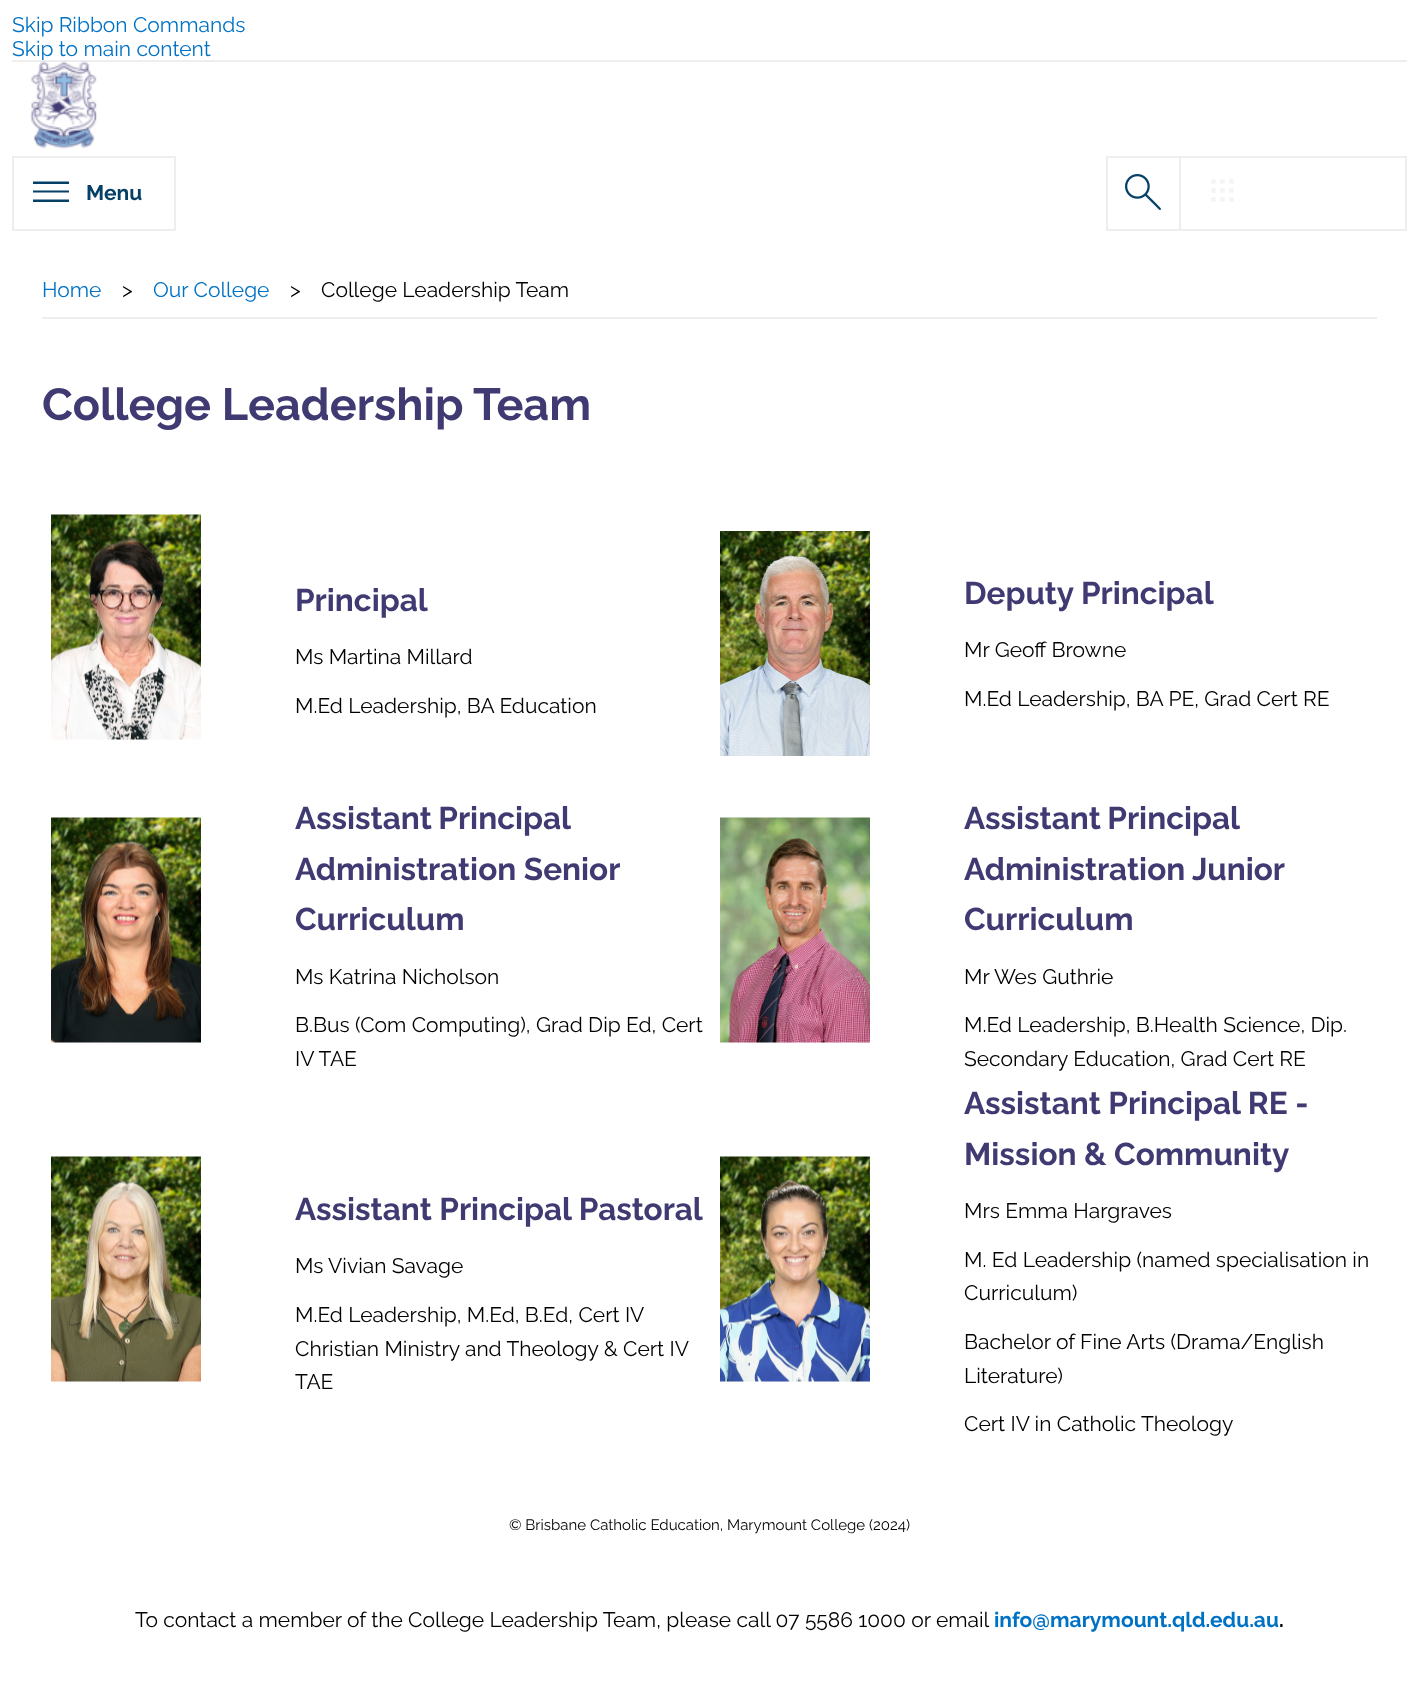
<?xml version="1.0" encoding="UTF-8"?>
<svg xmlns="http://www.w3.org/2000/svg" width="1418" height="1685">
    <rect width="100%" height="100%" fill="#FFFFFF"/>
    <text font-family="Raleway" font-size="21" fill="#0072C6">
        <tspan x="12" y="32">Skip Ribbon Commands</tspan>
        <tspan x="12" y="56">Skip to main content</tspan>
    </text>
    <rect x="12" y="60" width="1395" height="2" fill="#EEEEEE"/>
    <image x="30" y="61" width="67" height="88" href="img_01.png"/>
    <rect x="13" y="157" width="162" height="73" fill="none" stroke="#EEEEEE" stroke-width="2"/>
    <path d="M 69 184 H 33 V 181.5 H 69 Z M 69 202 H 33 V 199.5 H 69 Z M 69 192.5 H 33 V 190.5 H 69 Z" fill="#054166"/>
    <text x="86" y="200" font-family="Raleway" font-size="21" font-weight="700" fill="#054166">Menu</text>
    <rect x="1180" y="157" width="226" height="73" fill="none" stroke="#EEEEEE" stroke-width="2"/>
    <rect x="1107" y="157" width="73" height="73" fill="none" stroke="#EEEEEE" stroke-width="2"/>
    <image x="1125" y="174" width="36" height="36" href="img_02.png"/>
    <image x="1211" y="179" width="23" height="23" href="img_03.png"/>
    <rect x="42" y="317" width="1335" height="2" fill="#EEEEEE"/>
    <text x="42" y="297" font-family="Raleway" font-size="21" fill="#0072C6">Home</text>
    <text x="122" y="297" font-family="Raleway" font-size="21" fill="#000000">&gt;</text>
    <text x="153" y="297" font-family="Raleway" font-size="21" fill="#0072C6">Our College</text>
    <text x="290" y="297" font-family="Raleway" font-size="21" fill="#000000">&gt;</text>
    <text x="321" y="297" font-family="Raleway" font-size="21" fill="#000000">College Leadership Team</text>
    <text x="42" y="420" font-family="Raleway" font-size="45" font-weight="700" fill="#403A72">College Leadership Team</text>
    <image x="51" y="514" width="150" height="226" href="img_04.png"/>
    <text x="295" y="611" font-family="Raleway" font-size="31.5" font-weight="700" fill="#403A72">Principal</text>
    <text x="295" y="664" font-family="Raleway" font-size="21" fill="#000000">Ms Martina Millard</text>
    <text x="295" y="713" font-family="Raleway" font-size="21" fill="#000000">M.Ed Leadership, BA Education</text>
    <image x="720" y="531" width="150" height="225" href="img_05.png"/>
    <text x="964" y="604" font-family="Raleway" font-size="31.5" font-weight="700" fill="#403A72">Deputy Principal</text>
    <text x="964" y="657" font-family="Raleway" font-size="21" fill="#000000">Mr Geoff Browne</text>
    <text x="964" y="706" font-family="Raleway" font-size="21" fill="#000000">M.Ed Leadership, BA PE, Grad Cert RE</text>
    <image x="51" y="817" width="150" height="226" href="img_06.png"/>
    <text font-family="Raleway" font-size="31.5" font-weight="700" fill="#403A72">
        <tspan x="295" y="829" word-spacing="-1">Assistant Principal</tspan>
        <tspan x="295" y="880">Administration Senior</tspan>
        <tspan x="295" y="930">Curriculum</tspan>
    </text>
    <text x="295" y="984" font-family="Raleway" font-size="21" fill="#000000">Ms Katrina Nicholson</text>
    <text font-family="Raleway" font-size="21" fill="#000000">
        <tspan x="295" y="1032">B.Bus (Com Computing), Grad Dip Ed, Cert</tspan>
        <tspan x="295" y="1066">IV TAE</tspan>
    </text>
    <image x="720" y="817" width="150" height="226" href="img_07.png"/>
    <text font-family="Raleway" font-size="31.5" font-weight="700" fill="#403A72">
        <tspan x="964" y="829" word-spacing="-1">Assistant Principal</tspan>
        <tspan x="964" y="880">Administration Junior</tspan>
        <tspan x="964" y="930">Curriculum</tspan>
    </text>
    <text x="964" y="984" font-family="Raleway" font-size="21" fill="#000000">Mr Wes Guthrie</text>
    <text font-family="Raleway" font-size="21" fill="#000000">
        <tspan x="964" y="1032">M.Ed Leadership, B.Health Science, Dip.</tspan>
        <tspan x="964" y="1066">Secondary Education, Grad Cert RE</tspan>
    </text>
    <image x="51" y="1156" width="150" height="226" href="img_08.png"/>
    <text x="295" y="1220" font-family="Raleway" font-size="31.5" font-weight="700" fill="#403A72">Assistant Principal Pastoral</text>
    <text x="295" y="1273" font-family="Raleway" font-size="21" fill="#000000">Ms Vivian Savage</text>
    <text font-family="Raleway" font-size="21" fill="#000000">
        <tspan x="295" y="1322">M.Ed Leadership, M.Ed, B.Ed, Cert IV</tspan>
        <tspan x="295" y="1356">Christian Ministry and Theology &amp; Cert IV</tspan>
        <tspan x="295" y="1389">TAE</tspan>
    </text>
    <image x="720" y="1156" width="150" height="226" href="img_09.png"/>
    <text font-family="Raleway" font-size="31.5" font-weight="700" fill="#403A72">
        <tspan x="964" y="1114">Assistant Principal RE -</tspan>
        <tspan x="964" y="1165">Mission &amp; Community</tspan>
    </text>
    <text x="964" y="1218" font-family="Raleway" font-size="21" fill="#000000">Mrs Emma Hargraves</text>
    <text font-family="Raleway" font-size="21" fill="#000000">
        <tspan x="964" y="1267">M. Ed Leadership (named specialisation in</tspan>
        <tspan x="964" y="1300">Curriculum)</tspan>
    </text>
    <text font-family="Raleway" font-size="21" fill="#000000">
        <tspan x="964" y="1349">Bachelor of Fine Arts (Drama/English</tspan>
        <tspan x="964" y="1383">Literature)</tspan>
    </text>
    <text x="964" y="1431" font-family="Raleway" font-size="21" fill="#000000">Cert IV in Catholic Theology</text>
    <text x="509" y="1530" font-family="Raleway" font-size="15" fill="#000000">© Brisbane Catholic Education, Marymount College (2024)</text>
    <text x="135" y="1627" font-family="Raleway" font-size="21" fill="#000000">To contact a member of the College Leadership Team, please call 07 5586 1000 or email</text>
    <text x="994" y="1627" font-family="Raleway" font-size="21" font-weight="700" fill="#0072C6">info@marymount.qld.edu.au</text>
    <text x="1279" y="1627" font-family="Raleway" font-size="21" font-weight="700" fill="#000000">.</text>
</svg>
